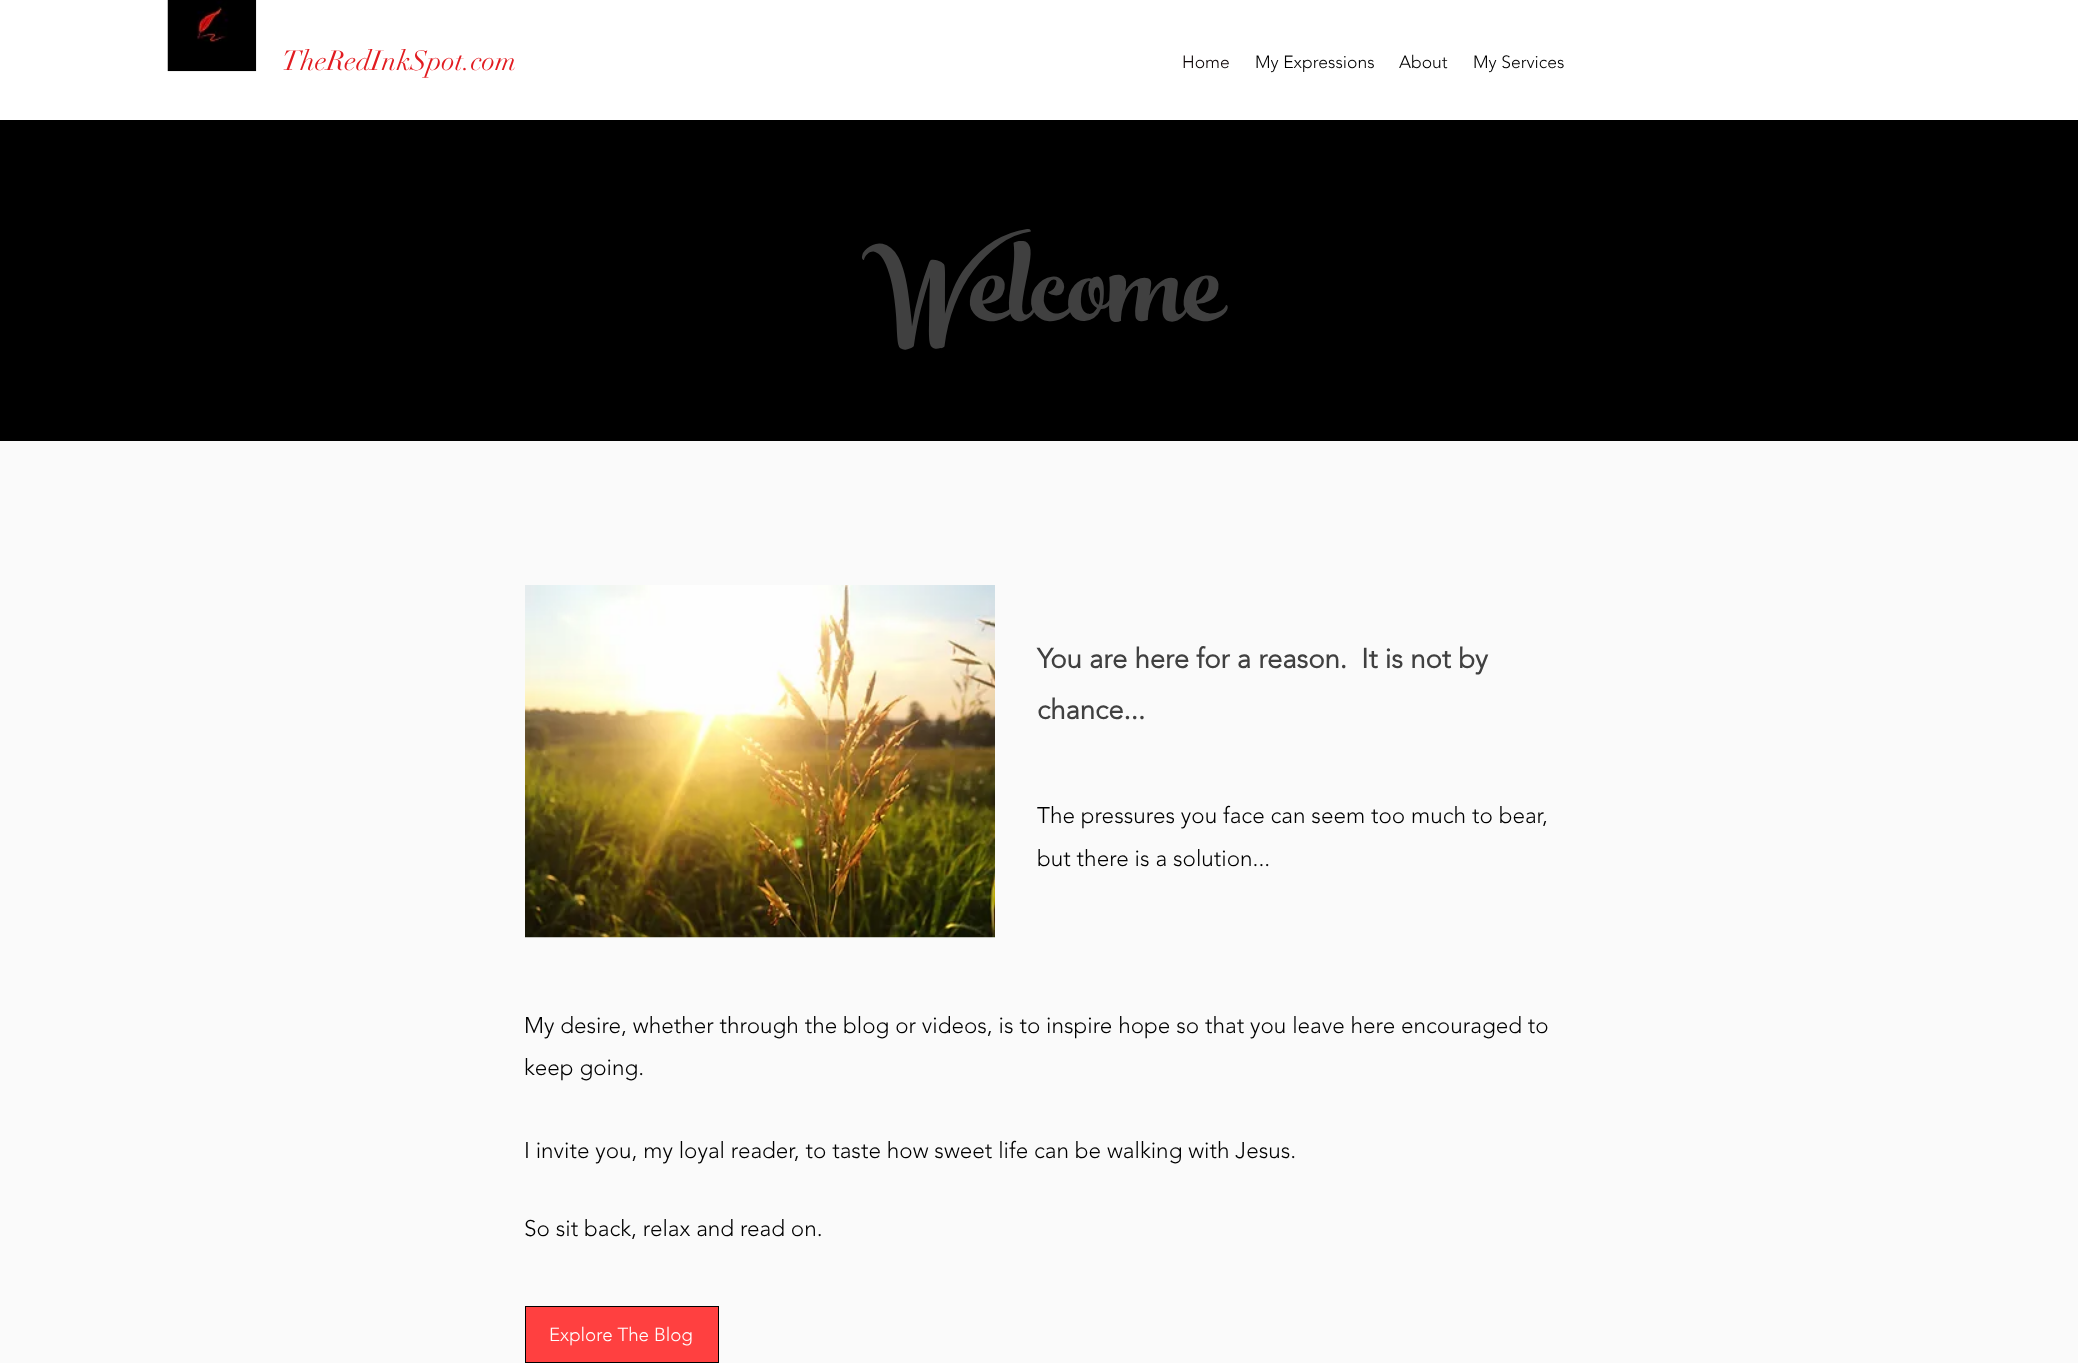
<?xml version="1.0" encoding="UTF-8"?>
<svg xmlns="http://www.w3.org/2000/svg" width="2078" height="1363">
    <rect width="100%" height="100%" fill="#FFFFFF"/>
    <image x="167" y="0" width="90" height="72" href="img_01.png"/>
    <text x="282" y="70" font-family="didot" font-size="27.5" fill="#E21C21">TheRedInkSpot.com</text>
    <text x="1182" y="68" font-family="'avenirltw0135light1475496'" font-size="17.5" font-weight="300" fill="#0C0405">Home</text>
    <text x="1255" y="68" font-family="'avenirltw0135light1475496'" font-size="17.5" font-weight="300" fill="#000000">My Expressions</text>
    <text x="1399" y="68" font-family="'avenirltw0135light1475496'" font-size="17.5" font-weight="300" fill="#000000">About</text>
    <text x="1473" y="68" font-family="'avenirltw0135light1475496'" font-size="17.5" font-weight="300" fill="#000000">My Services</text>
    <rect x="0" y="120" width="2078" height="321" fill="#000000"/>
    <text x="862" y="321" font-family="'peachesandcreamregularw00'" font-size="170" fill="#404040">Welcome</text>
    <rect x="0" y="441" width="2078" height="922" fill="#FAFAFA"/>
    <image x="525" y="585" width="470" height="353" href="img_02.png"/>
    <text font-family="'avenirltw0135light1475496'" font-size="27.5" font-weight="700" fill="#404040" xml:space="preserve"><tspan x="1037" y="668">You are here for a reason.  It is not by</tspan><tspan x="1037" y="719">chance...</tspan></text>
    <text font-family="'avenirltw0135light1475496'" font-size="22.5" font-weight="300" fill="#000000">
        <tspan x="1037" y="823">The pressures you face can seem too much to bear,</tspan>
        <tspan x="1037" y="866">but there is a solution...</tspan>
    </text>
    <text font-family="'avenirltw0135light1475496'" font-size="22.5" font-weight="300" fill="#000000">
        <tspan x="524" y="1033">My desire, whether through the blog or videos, is to inspire hope so that you leave here encouraged to</tspan>
        <tspan x="524" y="1075">keep going.</tspan>
    </text>
    <text x="524" y="1158" font-family="'avenirltw0135light1475496'" font-size="22.5" font-weight="300" fill="#000000">I invite you, my loyal reader, to taste how sweet life can be walking with Jesus.</text>
    <text x="524" y="1236" font-family="'avenirltw0135light1475496'" font-size="22.5" font-weight="300" fill="#000000">So sit back, relax and read on.</text>
    <rect x="525.5" y="1306.5" width="193" height="56" fill="#FF4040" stroke="#000000"/>
    <text x="549" y="1341" font-family="'avenirltw0135light1475496'" font-size="18.75" font-weight="300" fill="#FFFFFF">Explore The Blog</text>
</svg>
